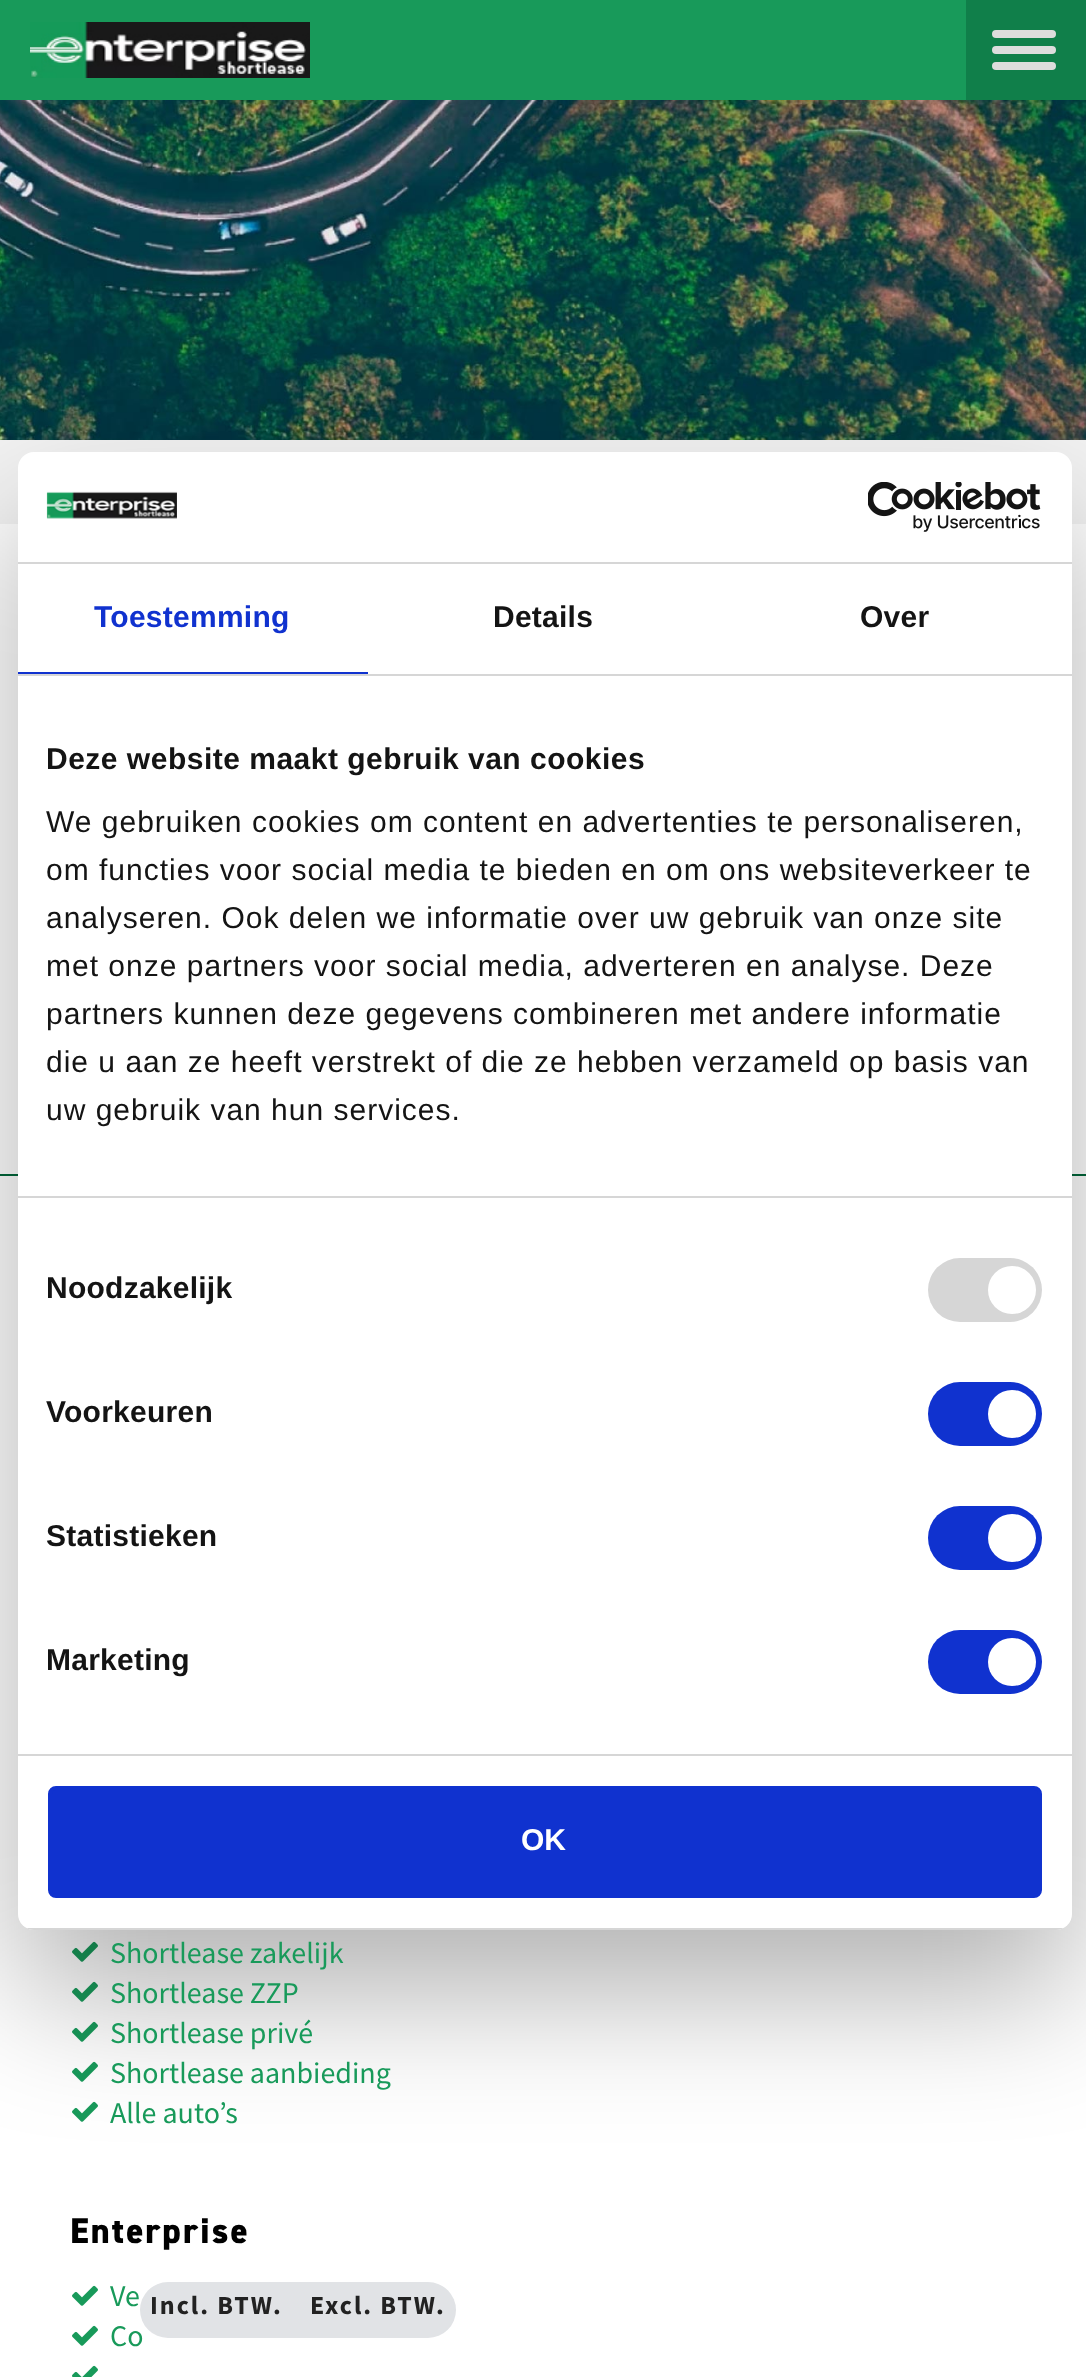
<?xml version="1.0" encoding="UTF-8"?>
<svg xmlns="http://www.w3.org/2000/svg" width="1086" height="2377">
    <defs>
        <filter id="blur1" x="-50%" y="-200%" width="200%" height="500%"><feGaussianBlur stdDeviation="68"/></filter>
        <clipPath id="clip1"><rect x="18" y="452" width="1054" height="1478" rx="16"/></clipPath>
    </defs>
    <rect width="100%" height="100%" fill="#FFFFFF"/>
    <image x="0" y="100" width="1086" height="340" href="img_04.png"/>
    <rect x="0" y="440" width="1086" height="84" fill="#F3F3F3"/>
    <rect x="0" y="1174" width="1086" height="2" fill="#006639"/>
    <image x="72" y="1941" width="26" height="21" href="img_05.png"/>
    <image x="72" y="1981" width="26" height="21" href="img_05.png"/>
    <image x="72" y="2021" width="26" height="21" href="img_05.png"/>
    <image x="72" y="2061" width="26" height="21" href="img_05.png"/>
    <image x="72" y="2101" width="26" height="21" href="img_05.png"/>
    <rect x="18" y="516" width="1054" height="1478" rx="16" fill="#000000" fill-opacity="0.3" filter="url(#blur1)"/>
    <rect x="18" y="452" width="1054" height="1478" rx="16" fill="#FFFFFF"/>
    <rect x="18" y="562" width="1054" height="2" fill="#D6D6D6"/>
    <image x="46" y="491" width="131" height="28" href="img_01.png"/>
    <image x="868" y="482" width="173" height="50" href="img_02.png"/>
    <rect x="18" y="674" width="1054" height="2" fill="#D6D6D6"/>
    <rect x="18" y="672" width="350" height="2" fill="#1032CF"/>
    <text x="94" y="627" font-family="Liberation Sans" font-size="30" font-weight="700" letter-spacing="0.25" fill="#1032CF">Toestemming</text>
    <text x="493" y="627" font-family="Liberation Sans" font-size="30" font-weight="700" letter-spacing="0.25" fill="#141414">Details</text>
    <text x="860" y="627" font-family="Liberation Sans" font-size="30" font-weight="700" letter-spacing="0.25" fill="#141414">Over</text>
    <rect x="18" y="1196" width="1054" height="2" fill="#D6D6D6"/>
    <text x="46" y="769" font-family="Liberation Sans" font-size="30" font-weight="700" letter-spacing="0.5" fill="#141414">Deze website maakt gebruik van cookies</text>
    <text font-family="Liberation Sans" font-size="30" letter-spacing="1" fill="#141414">
        <tspan x="46" y="832">We gebruiken cookies om content en advertenties te personaliseren,</tspan>
        <tspan x="46" y="880">om functies voor social media te bieden en om ons websiteverkeer te</tspan>
        <tspan x="46" y="928">analyseren. Ook delen we informatie over uw gebruik van onze site</tspan>
        <tspan x="46" y="976">met onze partners voor social media, adverteren en analyse. Deze</tspan>
        <tspan x="46" y="1024">partners kunnen deze gegevens combineren met andere informatie</tspan>
        <tspan x="46" y="1072">die u aan ze heeft verstrekt of die ze hebben verzameld op basis van</tspan>
        <tspan x="46" y="1120">uw gebruik van hun services.</tspan>
    </text>
    <rect x="18" y="1754" width="1054" height="2" fill="#D6D6D6"/>
    <text x="46" y="1298" font-family="Liberation Sans" font-size="30" font-weight="700" letter-spacing="0.25" fill="#141414">Noodzakelijk</text>
    <rect x="928" y="1258" width="114" height="64" rx="32" fill="#D6D6D6"/>
    <circle cx="1012" cy="1290" r="24" fill="#FFFFFF"/>
    <text x="46" y="1422" font-family="Liberation Sans" font-size="30" font-weight="700" letter-spacing="0.25" fill="#141414">Voorkeuren</text>
    <rect x="928" y="1382" width="114" height="64" rx="32" fill="#1032CF"/>
    <circle cx="1012" cy="1414" r="24" fill="#FFFFFF"/>
    <text x="46" y="1546" font-family="Liberation Sans" font-size="30" font-weight="700" letter-spacing="0.25" fill="#141414">Statistieken</text>
    <rect x="928" y="1506" width="114" height="64" rx="32" fill="#1032CF"/>
    <circle cx="1012" cy="1538" r="24" fill="#FFFFFF"/>
    <text x="46" y="1670" font-family="Liberation Sans" font-size="30" font-weight="700" letter-spacing="0.25" fill="#141414">Marketing</text>
    <rect x="928" y="1630" width="114" height="64" rx="32" fill="#1032CF"/>
    <circle cx="1012" cy="1662" r="24" fill="#FFFFFF"/>
    <g clip-path="url(#clip1)">
        <rect x="18" y="1928" width="1054" height="2" fill="#D6D6D6"/>
    </g>
    <rect x="50" y="1788" width="990" height="108" rx="6" fill="#1032CF" stroke="#1032CF" stroke-width="4"/>
    <text x="521" y="1850" font-family="Liberation Sans" font-size="30" font-weight="700" fill="#FFFFFF">OK</text>
    <rect x="0" y="0" width="966" height="100" fill="#189A5A"/>
    <image x="30" y="22" width="280" height="56" href="img_03.png"/>
    <rect x="966" y="0" width="120" height="100" fill="#107F4A"/>
    <rect x="992" y="30" width="64" height="8" rx="4" fill="#DDDDDD"/>
    <rect x="992" y="46" width="64" height="8" rx="4" fill="#DDDDDD"/>
    <rect x="992" y="62" width="64" height="8" rx="4" fill="#DDDDDD"/>
    <text font-family="Source Sans Pro" font-size="30" fill="#189A5A">
        <tspan x="110" y="1963">Shortlease zakelijk</tspan>
        <tspan x="110" y="2003">Shortlease ZZP</tspan>
        <tspan x="110" y="2043">Shortlease privé</tspan>
        <tspan x="110" y="2083">Shortlease aanbieding</tspan>
        <tspan x="110" y="2123">Alle auto’s</tspan>
    </text>
    <text x="70" y="2243" font-family="'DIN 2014'" font-size="36" font-weight="800" letter-spacing="2" fill="#000000">Enterprise</text>
    <image x="72" y="2285" width="26" height="21" href="img_05.png"/>
    <text x="110" y="2306" font-family="Source Sans Pro" font-size="30" fill="#189A5A">Ve</text>
    <image x="72" y="2325" width="26" height="21" href="img_05.png"/>
    <text x="110" y="2346" font-family="Source Sans Pro" font-size="30" fill="#189A5A">Co</text>
    <image x="72" y="2365" width="26" height="12" href="img_06.png"/>
    <rect x="140" y="2282" width="316" height="56" rx="28" fill="#E1E3E6"/>
    <text x="150" y="2314" font-family="Source Sans Pro" font-size="26" font-weight="700" letter-spacing="2" fill="#222222">Incl. BTW.</text>
    <text x="310" y="2314" font-family="Source Sans Pro" font-size="26" font-weight="700" letter-spacing="2" fill="#222222">Excl. BTW.</text>
</svg>
